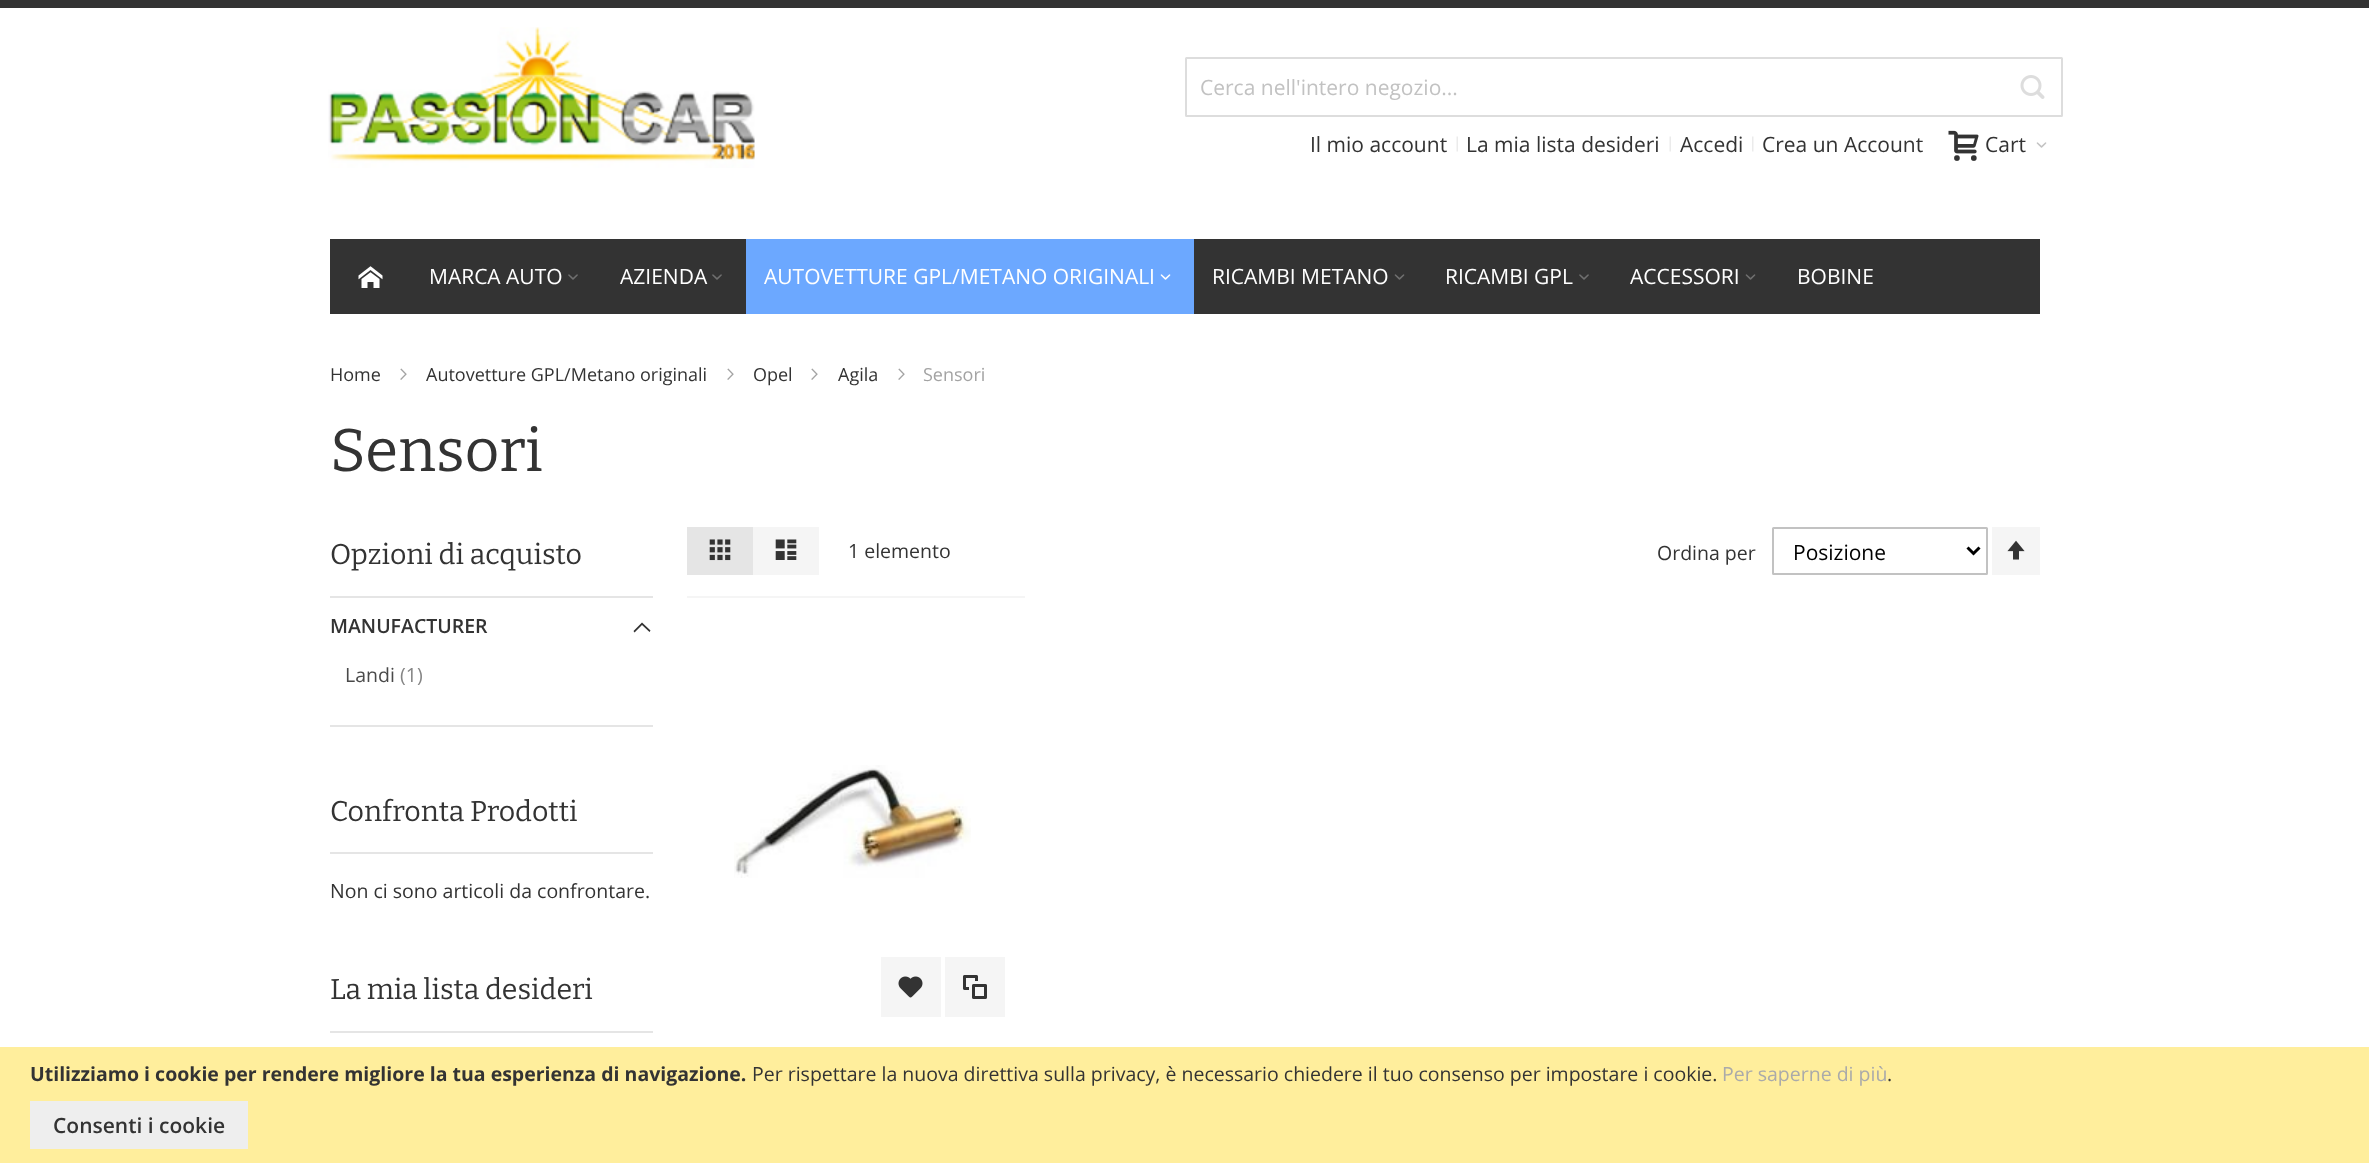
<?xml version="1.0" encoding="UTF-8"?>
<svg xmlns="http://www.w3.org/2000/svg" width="2369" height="1163">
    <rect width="100%" height="100%" fill="#FFFFFF"/>
    <rect x="0" y="0" width="2369" height="8" fill="#333333"/>
    <image x="328" y="27" width="427" height="141" href="img_01.png"/>
    <rect x="1186" y="58" width="876" height="58" rx="0.5" fill="none" stroke="#DDDDDD" stroke-width="2"/>
    <text x="1200" y="95" font-family="Open Sans" font-size="21" fill="#C2C2C2">Cerca nell'intero negozio...</text>
    <image x="2020" y="75" width="25" height="24" href="img_02.png"/>
    <text x="1310" y="152" font-family="Open Sans" font-size="21" fill="#333333">Il mio account</text>
    <image x="1456" y="136" width="2" height="16" href="img_03.png"/>
    <text x="1466" y="152" font-family="Open Sans" font-size="21" fill="#333333">La mia lista desideri</text>
    <image x="1669" y="136" width="2" height="16" href="img_03.png"/>
    <text x="1680" y="152" font-family="Open Sans" font-size="21" fill="#333333">Accedi</text>
    <image x="1752" y="136" width="2" height="16" href="img_04.png"/>
    <text x="1762" y="152" font-family="Open Sans" font-size="21" fill="#333333">Crea un Account</text>
    <image x="1948" y="130" width="31" height="31" href="img_05.png"/>
    <text x="1985" y="152" font-family="Open Sans" font-size="21" fill="#333333">Cart</text>
    <image x="2036" y="142" width="11" height="6" href="img_06.png"/>
    <rect x="330" y="239" width="1710" height="75" fill="#333333"/>
    <image x="358" y="266" width="25" height="22" href="img_07.png"/>
    <text x="429" y="284" font-family="Open Sans" font-size="21" fill="#FFFFFF">MARCA AUTO</text>
    <image x="568" y="274" width="10" height="6" href="img_08.png"/>
    <text x="620" y="284" font-family="Open Sans" font-size="21" fill="#FFFFFF">AZIENDA</text>
    <image x="712" y="274" width="10" height="6" href="img_08.png"/>
    <rect x="746" y="239" width="448" height="75" fill="#6CA8FF"/>
    <text x="764" y="284" font-family="Open Sans" font-size="21" fill="#FFFFFF">AUTOVETTURE GPL/METANO ORIGINALI</text>
    <image x="1160" y="274" width="11" height="6" href="img_09.png"/>
    <text x="1212" y="284" font-family="Open Sans" font-size="21" fill="#FFFFFF">RICAMBI METANO</text>
    <image x="1394" y="274" width="11" height="6" href="img_10.png"/>
    <text x="1445" y="284" font-family="Open Sans" font-size="21" fill="#FFFFFF">RICAMBI GPL</text>
    <image x="1579" y="274" width="10" height="6" href="img_08.png"/>
    <text x="1630" y="284" font-family="Open Sans" font-size="21" fill="#FFFFFF">ACCESSORI</text>
    <image x="1745" y="274" width="11" height="6" href="img_10.png"/>
    <text x="1797" y="284" font-family="Open Sans" font-size="21" fill="#FFFFFF">BOBINE</text>
    <text x="330" y="381" font-family="Open Sans" font-size="18" fill="#333333">Home</text>
    <image x="400" y="368" width="7" height="12" href="img_11.png"/>
    <text x="426" y="381" font-family="Open Sans" font-size="18" fill="#333333">Autovetture GPL/Metano originali</text>
    <image x="727" y="368" width="7" height="12" href="img_11.png"/>
    <text x="753" y="381" font-family="Open Sans" font-size="18" fill="#333333">Opel</text>
    <image x="811" y="368" width="7" height="12" href="img_11.png"/>
    <text x="838" y="381" font-family="Open Sans" font-size="18" fill="#333333">Agila</text>
    <image x="898" y="368" width="7" height="12" href="img_11.png"/>
    <text x="923" y="381" font-family="Open Sans" font-size="18" fill="#A3A3A3">Sensori</text>
    <text x="330" y="471" font-family="Bitter" font-size="60" font-weight="100" fill="#333333">Sensori</text>
    <rect x="330" y="596" width="323" height="2" fill="#E5E5E5"/>
    <text x="330" y="564" font-family="Bitter" font-size="28.5" font-weight="100" fill="#333333">Opzioni di acquisto</text>
    <rect x="330" y="725" width="323" height="2" fill="#E5E5E5"/>
    <text x="330" y="633" font-family="Open Sans" font-size="19.5" font-weight="600" fill="#333333">MANUFACTURER</text>
    <path d="M 642 625 L 649.5 632 L 650.5 630.5 L 642 622.5 L 633.5 631 L 634.5 632.5 Z" fill="#333333"/>
    <text x="345" y="682" font-family="Open Sans" font-size="19.5" fill="#494949">Landi</text>
    <text x="400" y="682" font-family="Open Sans" font-size="19.5" fill="#858585">(1)</text>
    <rect x="687" y="527" width="66" height="48" fill="#E5E5E5"/>
    <image x="709" y="539" width="22" height="22" href="img_12.png"/>
    <rect x="753" y="527" width="66" height="48" fill="#F5F5F5"/>
    <image x="775" y="539" width="22" height="21" href="img_13.png"/>
    <text x="848" y="558" font-family="Open Sans" font-size="19.5" fill="#333333">1 elemento</text>
    <text x="1657" y="560" font-family="Open Sans" font-size="19.5" fill="#333333">Ordina per</text>
    <rect x="1773" y="528" width="214" height="46" rx="0.5" fill="none" stroke="#C2C2C2" stroke-width="2"/>
    <path d="M 1967.5 547.5 L 1973.5 553.5 L 1979.5 547.5" fill="none" stroke="#000000" stroke-width="3"/>
    <text x="1793" y="560" font-family="Open Sans" font-size="21" fill="#000000">Posizione</text>
    <rect x="1992" y="527" width="48" height="48" fill="#F5F5F5"/>
    <image x="2007" y="540" width="18" height="20" href="img_14.png"/>
    <rect x="687" y="596" width="338" height="2" fill="#F5F5F5"/>
    <image x="734" y="765" width="237" height="113" href="img_15.png"/>
    <rect x="881" y="957" width="60" height="60" fill="#F5F5F5"/>
    <image x="898" y="976" width="25" height="22" href="img_16.png"/>
    <rect x="945" y="957" width="60" height="60" fill="#F5F5F5"/>
    <image x="963" y="975" width="24" height="24" href="img_17.png"/>
    <rect x="330" y="852" width="323" height="2" fill="#E5E5E5"/>
    <text x="330" y="821" font-family="Bitter" font-size="28.5" font-weight="100" fill="#333333">Confronta Prodotti</text>
    <text x="330" y="898" font-family="Open Sans" font-size="19.5" fill="#333333">Non ci sono articoli da confrontare.</text>
    <rect x="330" y="1031" width="323" height="2" fill="#E5E5E5"/>
    <text x="330" y="999" font-family="Bitter" font-size="28.5" font-weight="100" fill="#333333">La mia lista desideri</text>
    <rect x="0" y="1047" width="2369" height="116" fill="#FFEE9C"/>
    <text x="30" y="1081" font-family="Open Sans" font-size="19.5" font-weight="700" fill="#333333">Utilizziamo i cookie per rendere migliore la tua esperienza di navigazione.</text>
    <text x="752" y="1081" font-family="Open Sans" font-size="19.5" fill="#333333">Per rispettare la nuova direttiva sulla privacy, è necessario chiedere il tuo consenso per impostare i cookie.</text>
    <text x="1722" y="1081" font-family="Open Sans" font-size="19.5" fill="#AAAAAA">Per saperne di più</text>
    <text x="1887" y="1081" font-family="Open Sans" font-size="19.5" fill="#333333">.</text>
    <rect x="30" y="1101" width="218" height="48" fill="#EEEEEE"/>
    <text x="53" y="1133" font-family="Open Sans" font-size="21" font-weight="600" fill="#333333">Consenti i cookie</text>
</svg>
